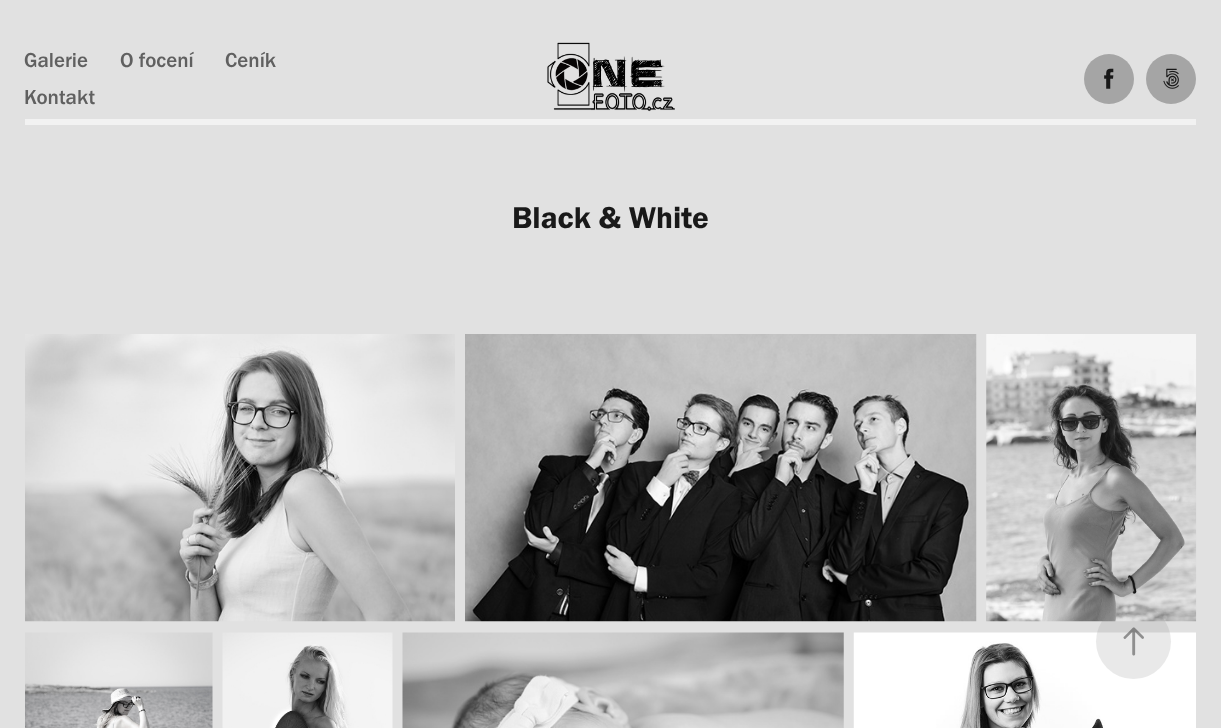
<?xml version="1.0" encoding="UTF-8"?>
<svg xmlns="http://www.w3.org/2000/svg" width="1221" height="728">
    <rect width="100%" height="100%" fill="#E1E1E1"/>
    <rect x="25" y="119" width="1171" height="6" fill="#F2F2F2"/>
    <text x="24" y="67" font-family="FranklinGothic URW" font-size="21" font-weight="500" fill="#606060">Galerie</text>
    <text x="120" y="67" font-family="FranklinGothic URW" font-size="21" font-weight="500" fill="#606060">O focení</text>
    <text x="225" y="67" font-family="FranklinGothic URW" font-size="21" font-weight="500" fill="#606060">Ceník</text>
    <text x="24" y="104" font-family="FranklinGothic URW" font-size="21" font-weight="500" fill="#606060">Kontakt</text>
    <image x="547" y="42" width="128" height="70" href="img_01.png"/>
    <circle cx="1109" cy="79" r="25" fill="#A5A5A5"/>
    <image x="1104" y="68" width="10" height="21" href="img_02.png"/>
    <circle cx="1171" cy="79" r="25" fill="#A5A5A5"/>
    <image x="1163" y="68" width="16" height="21" href="img_03.png"/>
    <text x="512" y="228" font-family="FranklinGothic URW" font-size="31.25" font-weight="600" fill="#191919">Black &amp; White</text>
    <image x="25" y="334" width="430" height="288" href="img_04.png"/>
    <image x="465" y="334" width="512" height="288" href="img_05.png"/>
    <image x="986" y="334" width="211" height="288" href="img_06.png"/>
    <image x="25" y="632" width="188" height="96" href="img_07.png"/>
    <image x="222" y="632" width="171" height="96" href="img_08.png"/>
    <image x="402" y="632" width="442" height="96" href="img_09.png"/>
    <image x="853" y="632" width="343" height="96" href="img_10.png"/>
    <circle cx="1133.5" cy="641.5" r="37.5" fill="#919191" fill-opacity="0.2"/>
    <image x="1123" y="627" width="21" height="29" href="img_11.png"/>
</svg>
